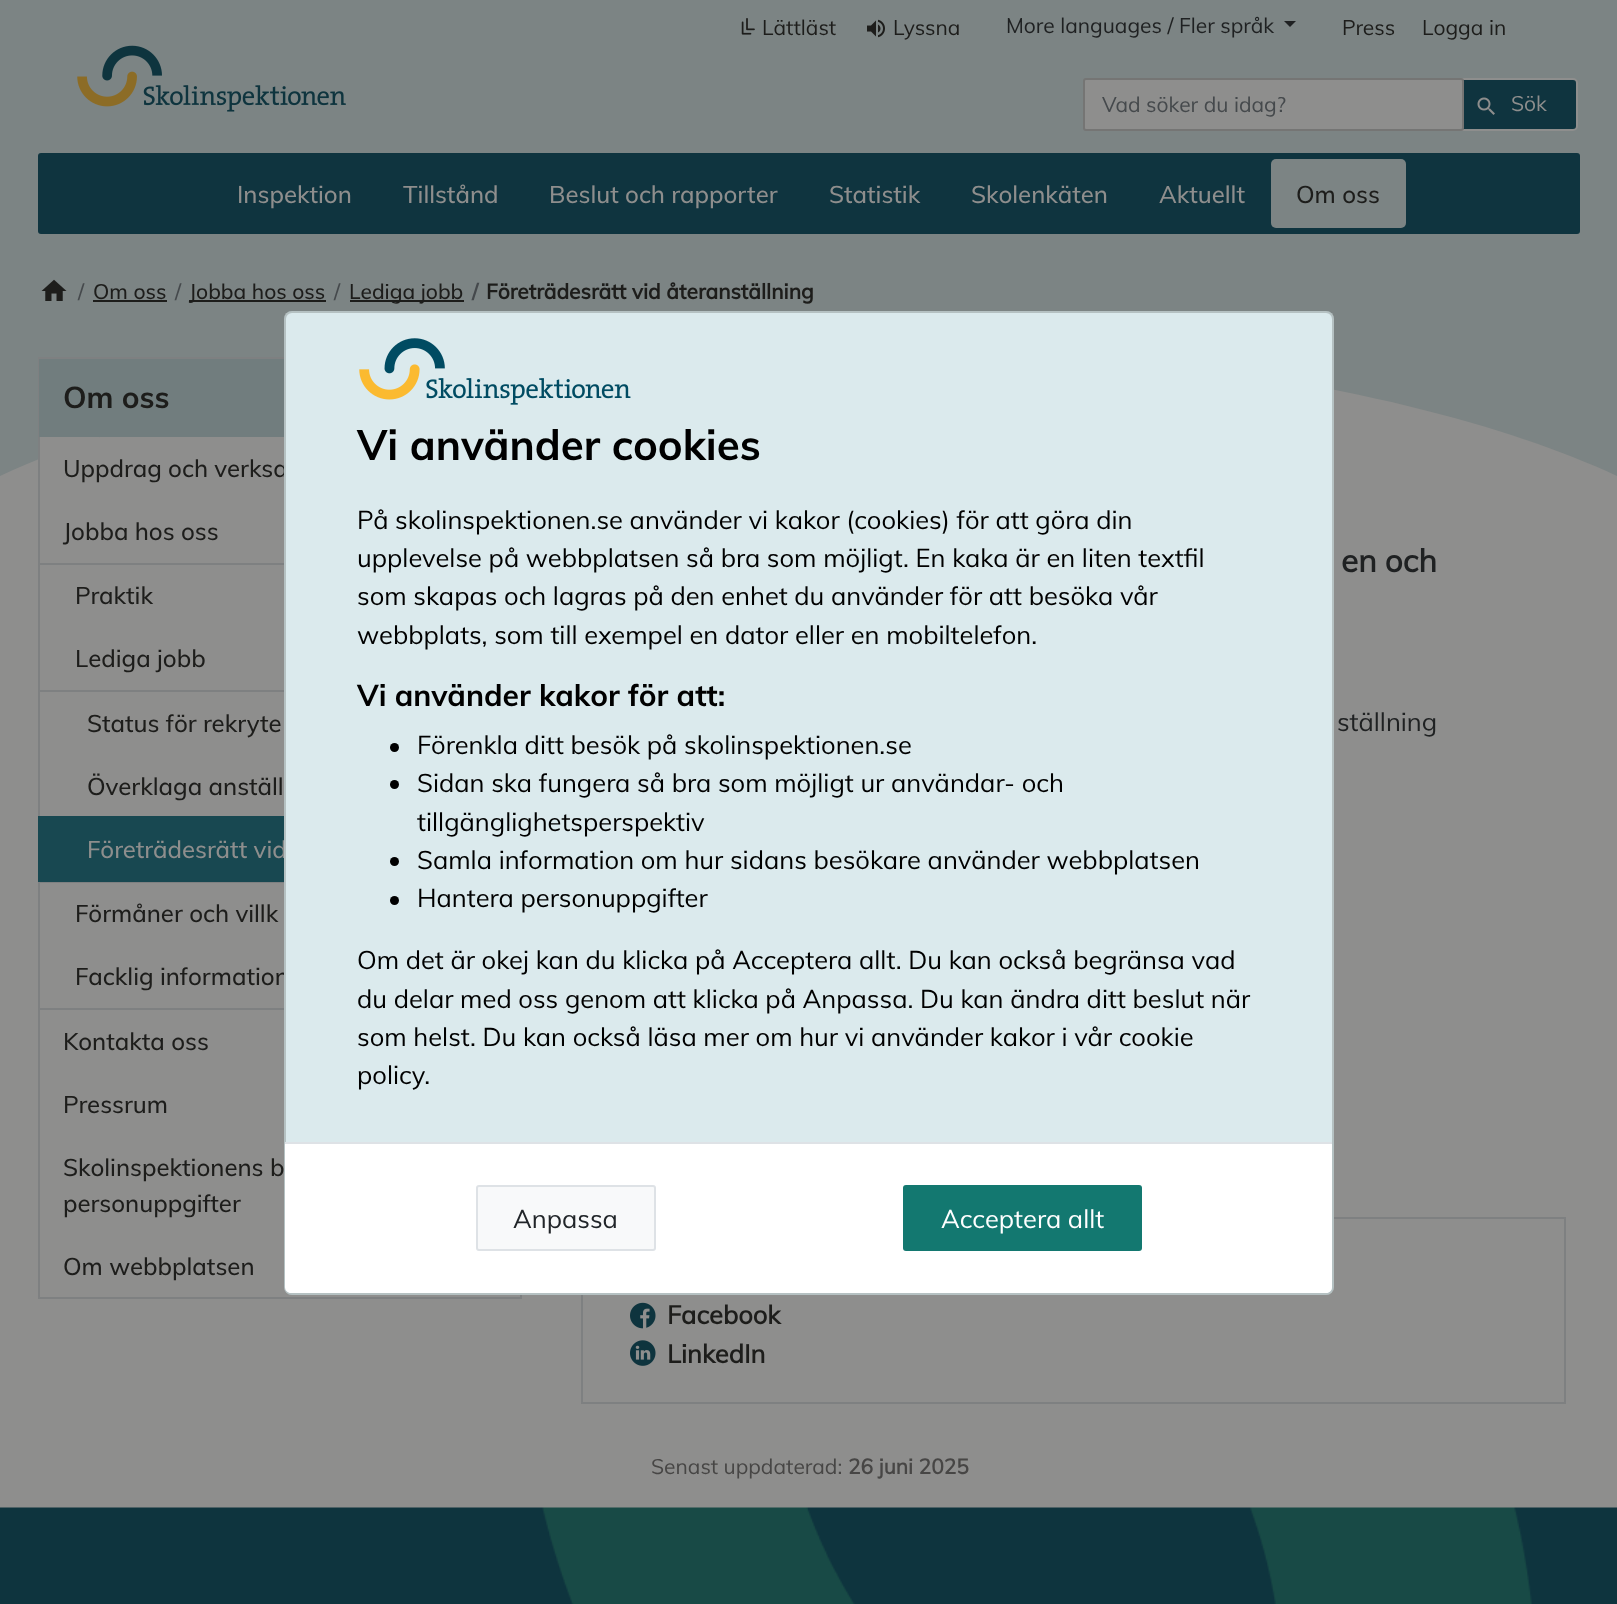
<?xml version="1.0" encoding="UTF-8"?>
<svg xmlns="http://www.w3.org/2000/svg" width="1617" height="1604">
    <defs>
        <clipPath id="clip1"><rect x="0" y="252" width="1617" height="600"/></clipPath>
    </defs>
    <rect width="100%" height="100%" fill="#8E8E8D"/>
    <rect x="0" y="0" width="1617" height="476" fill="#7C8484"/>
    <g clip-path="url(#clip1)">
        <path d="M 808 342 C 1344 342 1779 476 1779 642 V 942 H -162 V 642 C -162 476 273 342 808 342 Z" fill="#8E8E8D"/>
    </g>
    <image x="741" y="18" width="14" height="17" href="img_01.png"/>
    <text x="762" y="35" font-family="Muli" font-size="21" fill="#1D1D1B">Lättläst</text>
    <image x="867" y="19" width="18" height="19" href="img_02.png"/>
    <text x="893" y="35" font-family="Muli" font-size="21" fill="#1D1D1B">Lyssna</text>
    <text x="1006" y="33" font-family="Muli" font-size="21" fill="#1F2122">More languages / Fler språk</text>
    <path d="M 1284 21 H 1296 L 1290 27 Z" fill="#1F2122"/>
    <text x="1342" y="35" font-family="Muli" font-size="21" fill="#1D1D1B">Press</text>
    <text x="1422" y="35" font-family="Muli" font-size="21" fill="#1D1D1B">Logga in</text>
    <image x="77" y="45" width="269" height="67" href="img_03.png"/>
    <rect x="1446" y="79" width="131" height="51" rx="4" fill="#0F343F" stroke="#8E8E8D" stroke-width="2"/>
    <rect x="1084" y="79" width="379" height="51" rx="2" fill="#8E8E8D" stroke="#757574" stroke-width="2"/>
    <text x="1102" y="112" font-family="Muli" font-size="21" fill="#45494C">Vad söker du idag?</text>
    <image x="1477" y="97" width="18" height="18" href="img_04.png"/>
    <text x="1511" y="111" font-family="Muli" font-size="21" fill="#8E8E8D">Sök</text>
    <rect x="38" y="153" width="1542" height="81" rx="3" fill="#0F343F"/>
    <text x="237" y="203" font-family="Muli" font-size="24" font-weight="500" fill="#8E8E8D">Inspektion</text>
    <text x="403" y="203" font-family="Muli" font-size="24" font-weight="500" fill="#8E8E8D">Tillstånd</text>
    <text x="549" y="203" font-family="Muli" font-size="24" font-weight="500" fill="#8E8E8D">Beslut och rapporter</text>
    <text x="829" y="203" font-family="Muli" font-size="24" font-weight="500" fill="#8E8E8D">Statistik</text>
    <text x="971" y="203" font-family="Muli" font-size="24" font-weight="500" fill="#8E8E8D">Skolenkäten</text>
    <text x="1159" y="203" font-family="Muli" font-size="24" font-weight="500" fill="#8E8E8D">Aktuellt</text>
    <rect x="1271" y="159" width="135" height="69" rx="5" fill="#7C8484"/>
    <text x="1296" y="203" font-family="Muli" font-size="24" font-weight="500" fill="#1D1D1B">Om oss</text>
    <image x="41" y="279" width="26" height="22" href="img_05.png"/>
    <text x="78" y="299" font-family="Muli" font-size="21" font-weight="500" fill="#45494C">/</text>
    <text x="93" y="299" font-family="Muli" font-size="21" font-weight="500" fill="#1D1D1B">Om oss</text>
    <rect x="93" y="300" width="74" height="2" fill="#1D1D1B"/>
    <text x="175" y="299" font-family="Muli" font-size="21" font-weight="500" fill="#45494C">/</text>
    <rect x="189" y="300" width="137" height="2" fill="#1D1D1B"/>
    <text x="189" y="299" font-family="Muli" font-size="21" font-weight="500" fill="#1D1D1B">Jobba hos oss</text>
    <text x="334" y="299" font-family="Muli" font-size="21" font-weight="500" fill="#45494C">/</text>
    <rect x="350" y="300" width="114" height="2" fill="#1D1D1B"/>
    <text x="349" y="299" font-family="Muli" font-size="21" font-weight="500" fill="#1D1D1B">Lediga jobb</text>
    <text x="472" y="299" font-family="Muli" font-size="21" font-weight="700" fill="#45494C">/</text>
    <text x="486" y="299" font-family="Muli" font-size="21" font-weight="700" fill="#1D1D1B">Företrädesrätt vid återanställning</text>
    <rect x="40" y="437" width="59" height="22" fill="#8E8E8D"/>
    <rect x="39" y="358" width="482" height="940" fill="none" stroke="#7E8081" stroke-width="2"/>
    <rect x="39" y="359" width="245" height="78" fill="#717D7E"/>
    <text x="63" y="408" font-family="'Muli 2'" font-size="30" font-weight="700" fill="#1D1D1B">Om oss</text>
    <text x="63" y="477" font-family="Muli" font-size="24" font-weight="500" fill="#1D1D1B">Uppdrag och verksa</text>
    <text x="63" y="540" font-family="Muli" font-size="24" font-weight="500" fill="#1D1D1B">Jobba hos oss</text>
    <rect x="39" y="563" width="245" height="2" fill="#7E8081"/>
    <rect x="39" y="1008" width="245" height="2" fill="#7E8081"/>
    <text x="75" y="604" font-family="Muli" font-size="24" font-weight="500" fill="#1D1D1B">Praktik</text>
    <text x="75" y="667" font-family="Muli" font-size="24" font-weight="500" fill="#1D1D1B">Lediga jobb</text>
    <rect x="39" y="690" width="245" height="2" fill="#7E8081"/>
    <rect x="39" y="882" width="245" height="1" fill="#7E8081"/>
    <text x="87" y="732" font-family="Muli" font-size="24" font-weight="500" fill="#1D1D1B">Status för rekryte</text>
    <text x="87" y="795" font-family="Muli" font-size="24" font-weight="500" fill="#1D1D1B">Överklaga anställ</text>
    <rect x="40" y="818" width="244" height="62" fill="#184851"/>
    <rect x="39" y="817" width="482" height="64" fill="none" stroke="#184851" stroke-width="2"/>
    <text x="87" y="858" font-family="Muli" font-size="24" font-weight="500" fill="#8E8E8D">Företrädesrätt vid</text>
    <text x="75" y="922" font-family="Muli" font-size="24" font-weight="500" fill="#1D1D1B">Förmåner och villk</text>
    <text x="75" y="985" font-family="Muli" font-size="24" font-weight="500" fill="#1D1D1B">Facklig information</text>
    <text x="63" y="1050" font-family="Muli" font-size="24" font-weight="500" fill="#1D1D1B">Kontakta oss</text>
    <text x="63" y="1113" font-family="Muli" font-size="24" font-weight="500" fill="#1D1D1B">Pressrum</text>
    <text font-family="Muli" font-size="24" font-weight="500" fill="#1D1D1B">
        <tspan x="63" y="1176">Skolinspektionens b</tspan>
        <tspan x="63" y="1212">personuppgifter</tspan>
    </text>
    <text x="63" y="1275" font-family="Muli" font-size="24" font-weight="500" fill="#1D1D1B">Om webbplatsen</text>
    <text x="1341" y="572" font-family="'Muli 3'" font-size="31.5" font-weight="700" fill="#1F2122">en och</text>
    <text x="1337" y="731" font-family="Muli" font-size="25.5" fill="#1F2122">ställning</text>
    <rect x="582" y="1218" width="983" height="185" fill="none" stroke="#7E8081" stroke-width="2"/>
    <image x="630" y="1302" width="26" height="27" href="img_06.png"/>
    <text x="667" y="1324" font-family="'Muli 3'" font-size="25.5" font-weight="700" fill="#1D1D1B">Facebook</text>
    <image x="630" y="1340" width="26" height="26" href="img_07.png"/>
    <text x="667" y="1363" font-family="'Muli 3'" font-size="25.5" font-weight="700" fill="#1D1D1B">LinkedIn</text>
    <text x="651" y="1474" font-family="Muli" font-size="21" fill="#474645">Senast uppdaterad:</text>
    <text x="848" y="1474" font-family="'Muli 3'" font-size="21" font-weight="700" fill="#474645">26 juni 2025</text>
    <rect x="284" y="311" width="1050" height="984" rx="8" fill="#DBEAED"/>
    <rect x="285" y="312" width="1048" height="982" rx="7" fill="none" stroke="#1D1D1B" stroke-opacity="0.2" stroke-width="2"/>
    <image x="359" y="338" width="272" height="67" href="img_08.png"/>
    <text x="357" y="460" font-family="'Muli 2'" font-size="42" font-weight="700" fill="#000000">Vi använder cookies</text>
    <text font-family="Muli" font-size="25.5" fill="#000000">
        <tspan x="357" y="529">På skolinspektionen.se använder vi kakor (cookies) för att göra din</tspan>
        <tspan x="357" y="567">upplevelse på webbplatsen så bra som möjligt. En kaka är en liten textfil</tspan>
        <tspan x="357" y="605">som skapas och lagras på den enhet du använder för att besöka vår</tspan>
        <tspan x="357" y="644">webbplats, som till exempel en dator eller en mobiltelefon.</tspan>
    </text>
    <text x="357" y="706" font-family="'Muli 2'" font-size="30" font-weight="700" fill="#000000">Vi använder kakor för att:</text>
    <circle cx="394.5" cy="747.5" r="4.5" fill="#000000"/>
    <text x="417" y="754" font-family="Muli" font-size="25.5" fill="#000000">Förenkla ditt besök på skolinspektionen.se</text>
    <circle cx="394.5" cy="784.5" r="4.5" fill="#000000"/>
    <text font-family="Muli" font-size="25.5" fill="#000000">
        <tspan x="417" y="792">Sidan ska fungera så bra som möjligt ur användar- och</tspan>
        <tspan x="417" y="831">tillgänglighetsperspektiv</tspan>
    </text>
    <circle cx="394.5" cy="861.5" r="4.5" fill="#000000"/>
    <text x="417" y="869" font-family="Muli" font-size="25.5" fill="#000000">Samla information om hur sidans besökare använder webbplatsen</text>
    <circle cx="394.5" cy="900.5" r="4.5" fill="#000000"/>
    <text x="417" y="907" font-family="Muli" font-size="25.5" fill="#000000">Hantera personuppgifter</text>
    <text font-family="Muli" font-size="25.5" fill="#000000">
        <tspan x="357" y="969">Om det är okej kan du klicka på Acceptera allt. Du kan också begränsa vad</tspan>
        <tspan x="357" y="1008">du delar med oss genom att klicka på Anpassa. Du kan ändra ditt beslut när</tspan>
        <tspan x="357" y="1046">som helst. Du kan också läsa mer om hur vi använder kakor i vår cookie</tspan>
        <tspan x="357" y="1084">policy.</tspan>
    </text>
    <path d="M 285 1142 H 1332 V 1287 C 1332 1290.5 1329.5 1293 1326 1293 H 291 C 287.5 1293 285 1290.5 285 1287 Z" fill="#FFFFFF"/>
    <rect x="285" y="1142" width="1047" height="2" fill="#DEE2E6"/>
    <rect x="477" y="1186" width="178" height="64" rx="2" fill="#F8F9FA" stroke="#DEE2E6" stroke-width="2"/>
    <text x="513" y="1228" font-family="Muli" font-size="25.5" fill="#212529">Anpassa</text>
    <rect x="903" y="1185" width="239" height="66" rx="3" fill="#137870"/>
    <text x="941" y="1228" font-family="Muli" font-size="25.5" fill="#FFFFFF">Acceptera allt</text>
    <image x="0" y="1507" width="1617" height="97" href="img_09.png"/>
</svg>
